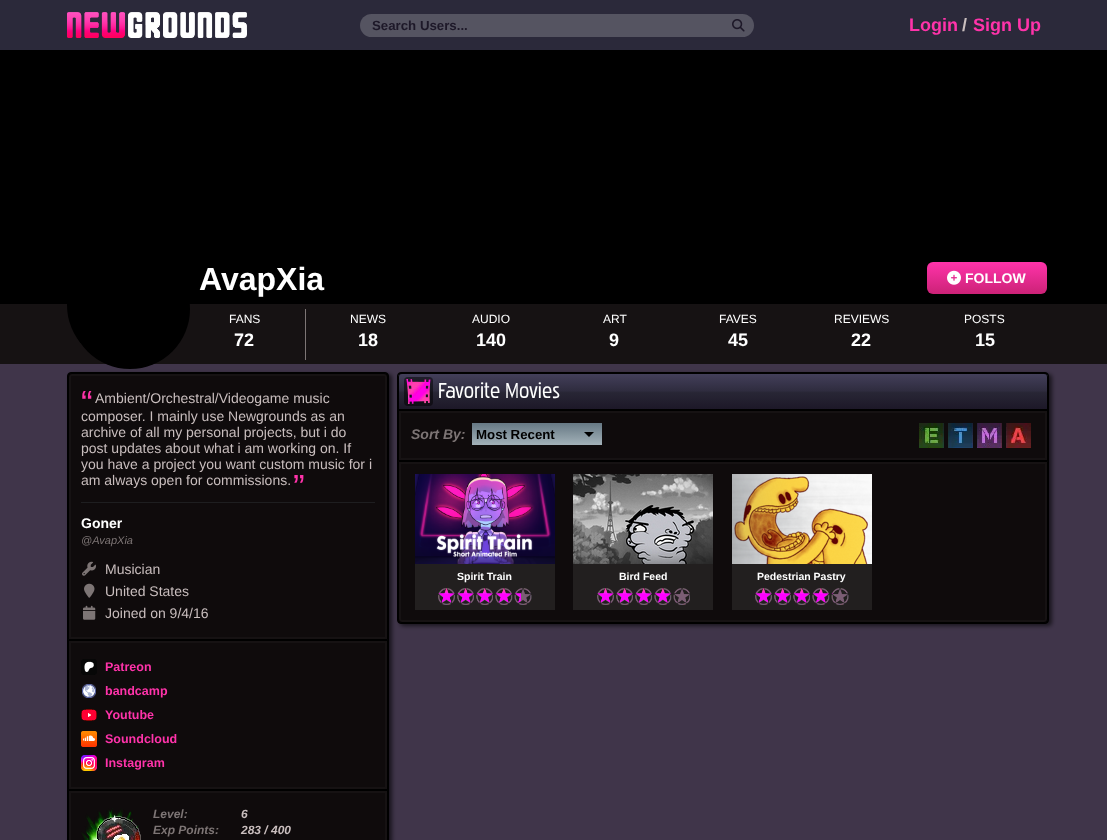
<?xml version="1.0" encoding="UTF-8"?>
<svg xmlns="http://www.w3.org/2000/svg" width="1107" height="840">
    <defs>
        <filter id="blur1" x="-50%" y="-200%" width="200%" height="500%"><feGaussianBlur stdDeviation="2"/></filter>
        <clipPath id="clip1"><path d="M 402 373 H 1044 C 1046 373 1048 375 1048 377 V 410 H 398 V 377 C 398 375 400 373 402 373 Z"/></clipPath>
        <linearGradient id="g1" gradientUnits="userSpaceOnUse" x1="723" y1="374" x2="723" y2="409"><stop offset="0" stop-color="#433F5A"/><stop offset="0.48" stop-color="#2F2C3F"/><stop offset="0.53" stop-color="#282635"/><stop offset="1" stop-color="#1D1828"/></linearGradient>
        <linearGradient id="g2" gradientUnits="userSpaceOnUse" x1="987" y1="262" x2="987" y2="294"><stop offset="0" stop-color="#FF33AA"/><stop offset="1" stop-color="#CC2277"/></linearGradient>
        <linearGradient id="g3" gradientUnits="userSpaceOnUse" x1="537" y1="423" x2="537" y2="445"><stop offset="0" stop-color="#667884"/><stop offset="1" stop-color="#A3B2B9"/></linearGradient>
    </defs>
    <rect width="100%" height="100%" fill="#40354A"/>
    <rect x="0" y="0" width="1107" height="50" fill="#2B293A"/>
    <image x="67" y="12" width="180" height="26" href="img_01.png"/>
    <rect x="360" y="14" width="394" height="23" rx="11.5" fill="#555461"/>
    <text x="372" y="30" font-family="Liberation Sans" font-size="13.25" font-weight="700" fill="#1D1828">Search Users...</text>
    <image x="732" y="19" width="13" height="13" href="img_02.png"/>
    <text x="909" y="31" font-family="Liberation Sans" font-size="18" font-weight="700" fill="#FF33AA">Login</text>
    <text x="962" y="31" font-family="Liberation Sans" font-size="18" font-weight="700" fill="#C9BEBE">/</text>
    <text x="973" y="31" font-family="Liberation Sans" font-size="18" font-weight="700" fill="#FF33AA">Sign Up</text>
    <rect x="0" y="50" width="1107" height="254" fill="#000000"/>
    <rect x="0" y="304" width="1107" height="60" fill="#161213"/>
    <rect x="400" y="374" width="652" height="252" rx="4" fill="#000000" fill-opacity="0.6" filter="url(#blur1)"/>
    <rect x="397.5" y="372.5" width="651" height="251" rx="3.5" fill="#000000" stroke="#000000"/>
    <g clip-path="url(#clip1)">
        <rect x="398" y="374" width="650" height="35" fill="url(#g1)"/>
    </g>
    <path d="M 402 373.5 H 1044 C 1046 373.5 1047.5 375 1047.5 377 V 409.5 H 398.5 V 377 C 398.5 375 400 373.5 402 373.5 Z" fill="none" stroke="#000000"/>
    <rect x="70" y="374" width="322" height="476" rx="4" fill="#000000" fill-opacity="0.6" filter="url(#blur1)"/>
    <circle cx="130" cy="309" r="60" fill="#000000"/>
    <image x="67" y="304" width="14" height="39" href="img_03.png"/>
    <text x="199" y="290" font-family="Liberation Sans" font-size="32" font-weight="700" fill="#FFFFFF">AvapXia</text>
    <rect x="927" y="262" width="120" height="32" rx="6" fill="url(#g2)"/>
    <image x="947" y="270" width="14" height="15" href="img_04.png"/>
    <text x="965" y="283" font-family="Liberation Sans" font-size="14" font-weight="700" fill="#FFFFFF">FOLLOW</text>
    <text x="229" y="323" font-family="Liberation Sans" font-size="12" fill="#FFFFFF">FANS</text>
    <text x="234" y="346" font-family="Liberation Sans" font-size="18" font-weight="700" fill="#FFFFFF">72</text>
    <rect x="305" y="309" width="1" height="51" fill="#7D7575"/>
    <text x="350" y="323" font-family="Liberation Sans" font-size="12" fill="#FFFFFF">NEWS</text>
    <text x="358" y="346" font-family="Liberation Sans" font-size="18" font-weight="700" fill="#FFFFFF">18</text>
    <text x="472" y="323" font-family="Liberation Sans" font-size="12" fill="#FFFFFF">AUDIO</text>
    <text x="476" y="346" font-family="Liberation Sans" font-size="18" font-weight="700" fill="#FFFFFF">140</text>
    <text x="603" y="323" font-family="Liberation Sans" font-size="12" fill="#FFFFFF">ART</text>
    <text x="609" y="346" font-family="Liberation Sans" font-size="18" font-weight="700" fill="#FFFFFF">9</text>
    <text x="719" y="323" font-family="Liberation Sans" font-size="12" fill="#FFFFFF">FAVES</text>
    <text x="728" y="346" font-family="Liberation Sans" font-size="18" font-weight="700" fill="#FFFFFF">45</text>
    <text x="834" y="323" font-family="Liberation Sans" font-size="12" fill="#FFFFFF">REVIEWS</text>
    <text x="851" y="346" font-family="Liberation Sans" font-size="18" font-weight="700" fill="#FFFFFF">22</text>
    <text x="964" y="323" font-family="Liberation Sans" font-size="12" fill="#FFFFFF">POSTS</text>
    <text x="975" y="346" font-family="Liberation Sans" font-size="18" font-weight="700" fill="#FFFFFF">15</text>
    <rect x="67.5" y="372.5" width="321" height="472" rx="3.5" fill="#000000" stroke="#000000"/>
    <path d="M 72 373 H 384 C 386 373 388 375 388 377 V 640 H 68 V 377 C 68 375 70 373 72 373 Z" fill="#0F0B0C"/>
    <path d="M 72 375 H 384 C 385 375 386 376 386 377 V 638 H 70 V 377 C 70 376 71 375 72 375 Z" fill="none" stroke="#161213" stroke-width="2"/>
    <path d="M 72 373.5 H 384 C 386 373.5 387.5 375 387.5 377 V 639.5 H 68.5 V 377 C 68.5 375 70 373.5 72 373.5 Z" fill="none" stroke="#000000"/>
    <text x="81" y="415" font-family="Liberation Sans" font-size="35" fill="#FF33AA">“</text>
    <text x="95" y="403" font-family="Liberation Sans" font-size="14" fill="#C9BEBE">Ambient/Orchestral/Videogame music</text>
    <text font-family="Liberation Sans" font-size="14" fill="#C9BEBE">
        <tspan x="81" y="421">composer. I mainly use Newgrounds as an</tspan>
        <tspan x="81" y="437">archive of all my personal projects, but i do</tspan>
        <tspan x="81" y="453">post updates about what i am working on. If</tspan>
        <tspan x="81" y="469">you have a project you want custom music for i</tspan>
        <tspan x="81" y="485">am always open for commissions.</tspan>
    </text>
    <text x="293" y="499" font-family="Liberation Sans" font-size="35" fill="#FF33AA">”</text>
    <rect x="81" y="502" width="294" height="1" fill="#1E1E20"/>
    <text x="81" y="528" font-family="Liberation Sans" font-size="14" font-weight="700" fill="#FFFFFF">Goner</text>
    <text x="81" y="544" font-family="Liberation Sans" font-size="11" font-style="italic" fill="#7D7575">@AvapXia</text>
    <image x="82" y="561" width="14" height="15" href="img_05.png"/>
    <text x="105" y="574" font-family="Liberation Sans" font-size="14" fill="#C9BEBE">Musician</text>
    <image x="84" y="583" width="11" height="15" href="img_06.png"/>
    <text x="105" y="596" font-family="Liberation Sans" font-size="14" fill="#C9BEBE">United States</text>
    <image x="83" y="605" width="13" height="15" href="img_07.png"/>
    <text x="105" y="618" font-family="Liberation Sans" font-size="14" fill="#C9BEBE">Joined on 9/4/16</text>
    <rect x="70" y="642" width="316" height="146" fill="#0F0B0C" stroke="#161213" stroke-width="2"/>
    <image x="81" y="659" width="16" height="16" href="img_08.png"/>
    <text x="105" y="671" font-family="Liberation Sans" font-size="12.5" font-weight="700" fill="#FF33AA">Patreon</text>
    <image x="82" y="684" width="14" height="14" href="img_09.png"/>
    <text x="105" y="695" font-family="Liberation Sans" font-size="12.5" font-weight="700" fill="#FF33AA">bandcamp</text>
    <image x="81" y="709" width="16" height="12" href="img_10.png"/>
    <text x="105" y="719" font-family="Liberation Sans" font-size="12.5" font-weight="700" fill="#FF33AA">Youtube</text>
    <image x="81" y="731" width="16" height="16" href="img_11.png"/>
    <text x="105" y="743" font-family="Liberation Sans" font-size="12.5" font-weight="700" fill="#FF33AA">Soundcloud</text>
    <image x="81" y="755" width="16" height="16" href="img_12.png"/>
    <text x="105" y="767" font-family="Liberation Sans" font-size="12.5" font-weight="700" fill="#FF33AA">Instagram</text>
    <rect x="70" y="792" width="316" height="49" fill="#0F0B0C" stroke="#161213" stroke-width="2"/>
    <image x="81" y="808" width="58" height="32" href="img_13.png"/>
    <image x="96" y="815" width="45" height="25" href="img_14.png"/>
    <text x="153" y="818" font-family="Liberation Sans" font-size="12" font-weight="700" font-style="italic" fill="#7D7575">Level:</text>
    <text x="241" y="818" font-family="Liberation Sans" font-size="12" font-weight="700" font-style="italic" fill="#C9BEBE">6</text>
    <text x="153" y="834" font-family="Liberation Sans" font-size="12" font-weight="700" font-style="italic" fill="#7D7575">Exp Points:</text>
    <text x="241" y="834" font-family="Liberation Sans" font-size="12" font-weight="700" font-style="italic" fill="#C9BEBE">283 / 400</text>
    <rect x="404" y="377" width="29" height="29" rx="4" fill="#000000" fill-opacity="0.5"/>
    <image x="406" y="379" width="25" height="25" href="img_15.png"/>
    <text x="438" y="398" font-family="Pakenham" font-size="22" fill="#FFFFFF">Favorite Movies</text>
    <rect x="400" y="412" width="646" height="47" fill="#0F0B0C" stroke="#161213" stroke-width="2"/>
    <text x="411" y="439" font-family="Liberation Sans" font-size="14" font-weight="700" font-style="italic" fill="#7D7575">Sort By:</text>
    <rect x="472" y="423" width="130" height="22" fill="url(#g3)"/>
    <text x="476" y="439" font-family="Liberation Sans" font-size="13.25" font-weight="700" fill="#000000">Most Recent</text>
    <path d="M 584 432 H 594 L 589 437 Z" fill="#000000"/>
    <image x="919" y="423" width="25" height="25" href="img_16.png"/>
    <image x="948" y="423" width="25" height="25" href="img_17.png"/>
    <image x="977" y="423" width="25" height="25" href="img_18.png"/>
    <image x="1006" y="423" width="25" height="25" href="img_19.png"/>
    <path d="M 398 461 H 1048 V 619 C 1048 621 1046 623 1044 623 H 402 C 400 623 398 621 398 619 Z" fill="#0F0B0C"/>
    <path d="M 400 463 H 1046 V 619 C 1046 620 1045 621 1044 621 H 402 C 401 621 400 620 400 619 Z" fill="none" stroke="#161213" stroke-width="2"/>
    <path d="M 398.5 461.5 H 1047.5 V 619 C 1047.5 621 1046 622.5 1044 622.5 H 402 C 400 622.5 398.5 621 398.5 619 Z" fill="none" stroke="#000000"/>
    <image x="415" y="474" width="140" height="90" href="img_20.png"/>
    <rect x="415" y="564" width="140" height="46" fill="#221F1F"/>
    <text x="457" y="580" font-family="Liberation Sans" font-size="10.5" font-weight="700" fill="#FFFFFF">Spirit Train</text>
    <image x="438" y="588" width="94" height="17" href="img_21.png"/>
    <image x="438" y="588" width="83" height="16" href="img_22.png"/>
    <image x="573" y="474" width="140" height="90" href="img_23.png"/>
    <rect x="573" y="564" width="140" height="46" fill="#221F1F"/>
    <text x="619" y="580" font-family="Liberation Sans" font-size="10.5" font-weight="700" fill="#FFFFFF">Bird Feed</text>
    <image x="597" y="588" width="93" height="17" href="img_24.png"/>
    <image x="597" y="588" width="75" height="16" href="img_25.png"/>
    <image x="732" y="474" width="140" height="90" href="img_26.png"/>
    <rect x="732" y="564" width="140" height="46" fill="#221F1F"/>
    <text x="757" y="580" font-family="Liberation Sans" font-size="10.5" font-weight="700" fill="#FFFFFF">Pedestrian Pastry</text>
    <image x="755" y="588" width="94" height="17" href="img_21.png"/>
    <image x="755" y="588" width="78" height="16" href="img_27.png"/>
</svg>
